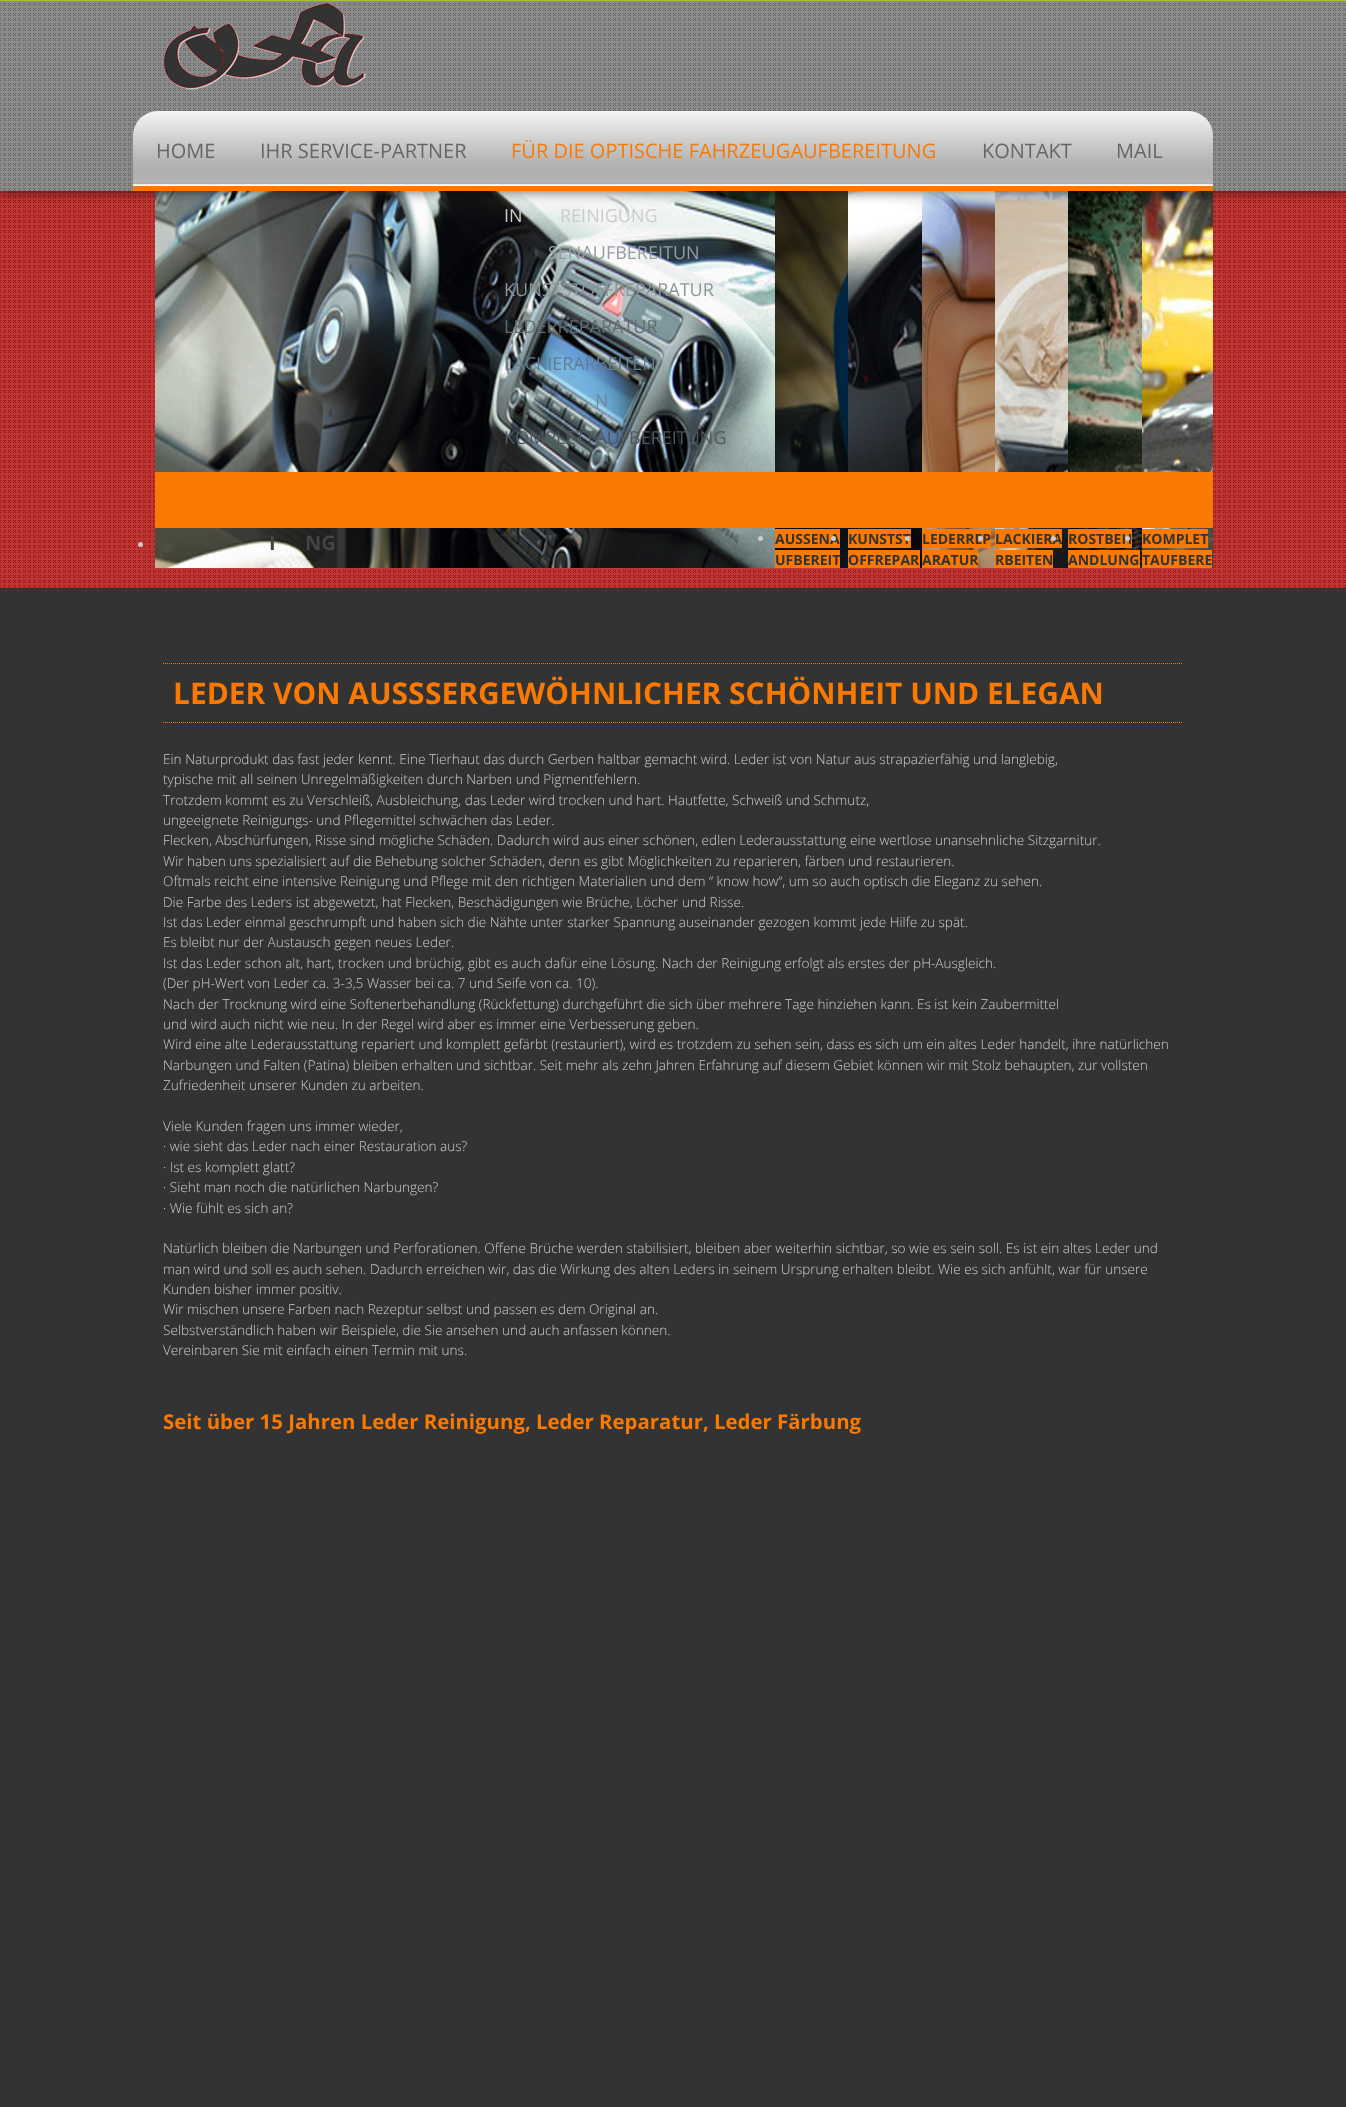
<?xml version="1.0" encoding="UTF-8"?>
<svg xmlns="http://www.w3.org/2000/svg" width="1346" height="2107">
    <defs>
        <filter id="blur1" x="-50%" y="-200%" width="200%" height="500%"><feGaussianBlur stdDeviation="6.5"/></filter>
    </defs>
    <rect width="100%" height="100%" fill="#333333"/>
    <rect x="0" y="191" width="1346" height="397" fill="#B51915"/>
    <image x="0" y="191" width="1346" height="397" href="img_04.png"/>
    <image x="155" y="191" width="620" height="377" href="img_05.png"/>
    <image x="775" y="191" width="73" height="377" href="img_06.png"/>
    <image x="848" y="191" width="74" height="377" href="img_07.png"/>
    <image x="922" y="191" width="73" height="377" href="img_08.png"/>
    <image x="995" y="191" width="73" height="377" href="img_09.png"/>
    <image x="1068" y="191" width="74" height="377" href="img_10.png"/>
    <image x="1142" y="191" width="71" height="377" href="img_11.png"/>
    <rect x="0" y="0" width="1346" height="191" fill="#000000" fill-opacity="0.65" filter="url(#blur1)"/>
    <rect x="0" y="1" width="1346" height="190" fill="#7A7A7A"/>
    <image x="0" y="1" width="1346" height="190" href="img_01.png"/>
    <rect x="0" y="0" width="1346" height="1" fill="#A7C23A"/>
    <image x="163" y="2" width="203" height="88" href="img_02.png"/>
    <path d="M 158 111 H 1188 C 1202 111 1213 122 1213 136 V 191 H 133 V 136 C 133 122 144 111 158 111 Z" fill="#B6B6B6"/>
    <image x="133" y="111" width="1080" height="80" href="img_03.png"/>
    <text x="156" y="158" font-family="Open Sans" font-size="20" fill="#666666">HOME</text>
    <text x="260" y="158" font-family="Open Sans" font-size="20" fill="#666666">IHR SERVICE-PARTNER</text>
    <text x="511" y="158" font-family="Open Sans" font-size="20" fill="#F97902">FÜR DIE OPTISCHE FAHRZEUGAUFBEREITUNG</text>
    <text x="504" y="222" font-family="Open Sans" font-size="18" fill="#CCCCCC">IN</text>
    <text x="560" y="222" font-family="Open Sans" font-size="18" fill="#CCCCCC">REINIGUNG</text>
    <text x="548" y="259" font-family="Open Sans" font-size="18" fill="#959DA2">SENAUFBEREITUN</text>
    <text x="504" y="296" font-family="Open Sans" font-size="18" fill="#8E9598">KUNSTSTOFFREPARATUR</text>
    <text x="504" y="333" font-family="Open Sans" font-size="18" fill="#606D72">LEDERREPARATUR</text>
    <text x="504" y="370" font-family="Open Sans" font-size="18" fill="#607E94">LACKIERARBEITEN</text>
    <text x="595" y="407" font-family="Open Sans" font-size="18" fill="#6E8995">N</text>
    <text x="504" y="444" font-family="Open Sans" font-size="18" fill="#4E5960">KOMPLETTAUFBEREITUNG</text>
    <text x="982" y="158" font-family="Open Sans" font-size="20" fill="#666666">KONTAKT</text>
    <text x="1116" y="158" font-family="Open Sans" font-size="20" fill="#666666">MAIL</text>
    <rect x="155" y="472" width="620" height="56" fill="#F97902"/>
    <circle cx="140.5" cy="544.5" r="2.5" fill="#CCCCCC"/>
    <text x="269" y="550" font-family="Open Sans" font-size="20" font-weight="700" fill="#444444">I</text>
    <text x="305" y="550" font-family="Open Sans" font-size="20" font-weight="700" fill="#444444">NG</text>
    <rect x="775" y="472" width="73" height="56" fill="#F97902"/>
    <circle cx="760.5" cy="538.5" r="2.5" fill="#CCCCCC"/>
    <rect x="775" y="529" width="65" height="19" fill="#F97902"/>
    <text x="775" y="544" font-family="Open Sans" font-size="14" font-weight="700" fill="#333333">AUSSENA</text>
    <rect x="775" y="550" width="65" height="18" fill="#F97902"/>
    <text x="775" y="565" font-family="Open Sans" font-size="14" font-weight="700" fill="#333333">UFBEREIT</text>
    <rect x="848" y="472" width="74" height="56" fill="#F97902"/>
    <circle cx="833.5" cy="538.5" r="2.5" fill="#CCCCCC"/>
    <rect x="848" y="529" width="63" height="19" fill="#F97902"/>
    <text x="848" y="544" font-family="Open Sans" font-size="14" font-weight="700" fill="#333333">KUNSTST</text>
    <rect x="848" y="550" width="72" height="18" fill="#F97902"/>
    <text x="848" y="565" font-family="Open Sans" font-size="14" font-weight="700" fill="#333333">OFFREPAR</text>
    <rect x="922" y="472" width="73" height="56" fill="#F97902"/>
    <circle cx="907.5" cy="538.5" r="2.5" fill="#CCCCCC"/>
    <rect x="922" y="529" width="69" height="19" fill="#F97902"/>
    <text x="922" y="544" font-family="Open Sans" font-size="14" font-weight="700" fill="#333333">LEDERREP</text>
    <rect x="922" y="550" width="56" height="18" fill="#F97902"/>
    <text x="922" y="565" font-family="Open Sans" font-size="14" font-weight="700" fill="#333333">ARATUR</text>
    <rect x="995" y="472" width="73" height="56" fill="#F97902"/>
    <circle cx="980.5" cy="538.5" r="2.5" fill="#CCCCCC"/>
    <rect x="995" y="529" width="67" height="19" fill="#F97902"/>
    <text x="995" y="544" font-family="Open Sans" font-size="14" font-weight="700" fill="#333333">LACKIERA</text>
    <rect x="995" y="550" width="58" height="18" fill="#F97902"/>
    <text x="995" y="565" font-family="Open Sans" font-size="14" font-weight="700" fill="#333333">RBEITEN</text>
    <rect x="1068" y="472" width="74" height="56" fill="#F97902"/>
    <circle cx="1053.5" cy="538.5" r="2.5" fill="#CCCCCC"/>
    <rect x="1068" y="529" width="64" height="19" fill="#F97902"/>
    <text x="1068" y="544" font-family="Open Sans" font-size="14" font-weight="700" fill="#333333">ROSTBEH</text>
    <rect x="1068" y="550" width="72" height="18" fill="#F97902"/>
    <text x="1068" y="565" font-family="Open Sans" font-size="14" font-weight="700" fill="#333333">ANDLUNG</text>
    <rect x="1142" y="472" width="71" height="56" fill="#F97902"/>
    <circle cx="1127.5" cy="538.5" r="2.5" fill="#CCCCCC"/>
    <rect x="1142" y="529" width="66" height="19" fill="#F97902"/>
    <text x="1142" y="544" font-family="Open Sans" font-size="14" font-weight="700" fill="#333333">KOMPLET</text>
    <rect x="1142" y="550" width="70" height="18" fill="#F97902"/>
    <text x="1142" y="565" font-family="Open Sans" font-size="14" font-weight="700" fill="#333333">TAUFBERE</text>
    <path d="M 163 663.5 H 1183" fill="none" stroke="#F97902" stroke-dasharray="1 1"/>
    <path d="M 163 722.5 H 1183" fill="none" stroke="#F97902" stroke-dasharray="1 1"/>
    <text x="173" y="704" font-family="Open Sans" font-size="29.9" font-weight="700" fill="#F97902">LEDER VON AUSS</text>
    <text x="425" y="704" font-family="Open Sans" font-size="29.9" font-weight="700" fill="#F97902">SERGEWÖHNLICHER SCHÖNHEIT UND ELEGAN</text>
    <text font-family="Open Sans" font-size="13.6" font-weight="300" fill="#CCCCCC">
        <tspan x="163" y="764">Ein Naturprodukt das fast jeder kennt. Eine Tierhaut das durch Gerben haltbar gemacht wird. Leder ist von Natur aus strapazierfähig und langlebig,</tspan>
        <tspan x="163" y="784">typische mit all seinen Unregelmäßigkeiten durch Narben und Pigmentfehlern.</tspan>
        <tspan x="163" y="805">Trotzdem kommt es zu Verschleiß, Ausbleichung, das Leder wird trocken und hart. Hautfette, Schweiß und Schmutz,</tspan>
        <tspan x="163" y="825">ungeeignete Reinigungs- und Pflegemittel schwächen das Leder.</tspan>
        <tspan x="163" y="845">Flecken, Abschürfungen, Risse sind mögliche Schäden. Dadurch wird aus einer schönen, edlen Lederausstattung eine wertlose unansehnliche Sitzgarnitur.</tspan>
        <tspan x="163" y="866">Wir haben uns spezialisiert auf die Behebung solcher Schäden, denn es gibt Möglichkeiten zu reparieren, färben und restaurieren.</tspan>
        <tspan x="163" y="886">Oftmals reicht eine intensive Reinigung und Pflege mit den richtigen Materialien und dem “ know how“, um so auch optisch die Eleganz zu sehen.</tspan>
        <tspan x="163" y="907">Die Farbe des Leders ist abgewetzt, hat Flecken, Beschädigungen wie Brüche, Löcher und Risse.</tspan>
        <tspan x="163" y="927">Ist das Leder einmal geschrumpft und haben sich die Nähte unter starker Spannung auseinander gezogen kommt jede Hilfe zu spät.</tspan>
        <tspan x="163" y="947">Es bleibt nur der Austausch gegen neues Leder.</tspan>
        <tspan x="163" y="968">Ist das Leder schon alt, hart, trocken und brüchig, gibt es auch dafür eine Lösung. Nach der Reinigung erfolgt als erstes der pH-Ausgleich.</tspan>
        <tspan x="163" y="988">(Der pH-Wert von Leder ca. 3-3,5 Wasser bei ca. 7 und Seife von ca. 10).</tspan>
        <tspan x="163" y="1009">Nach der Trocknung wird eine Softenerbehandlung (Rückfettung) durchgeführt die sich über mehrere Tage hinziehen kann. Es ist kein Zaubermittel</tspan>
        <tspan x="163" y="1029">und wird auch nicht wie neu. In der Regel wird aber es immer eine Verbesserung geben.</tspan>
        <tspan x="163" y="1049">Wird eine alte Lederausstattung repariert und komplett gefärbt (restauriert), wird es trotzdem zu sehen sein, dass es sich um ein altes Leder handelt, ihre natürlichen</tspan>
        <tspan x="163" y="1070">Narbungen und Falten (Patina) bleiben erhalten und sichtbar. Seit mehr als zehn Jahren Erfahrung auf diesem Gebiet können wir mit Stolz behaupten, zur vollsten</tspan>
        <tspan x="163" y="1090">Zufriedenheit unserer Kunden zu arbeiten.</tspan>
    </text>
    <text font-family="Open Sans" font-size="13.6" font-weight="300" fill="#CCCCCC">
        <tspan x="163" y="1131">Viele Kunden fragen uns immer wieder,</tspan>
        <tspan x="163" y="1151">· wie sieht das Leder nach einer Restauration aus?</tspan>
        <tspan x="163" y="1172">· Ist es komplett glatt?</tspan>
        <tspan x="163" y="1192">· Sieht man noch die natürlichen Narbungen?</tspan>
        <tspan x="163" y="1213">· Wie fühlt es sich an?</tspan>
    </text>
    <text font-family="Open Sans" font-size="13.6" font-weight="300" fill="#CCCCCC">
        <tspan x="163" y="1253">Natürlich bleiben die Narbungen und Perforationen. Offene Brüche werden stabilisiert, bleiben aber weiterhin sichtbar, so wie es sein soll. Es ist ein altes Leder und</tspan>
        <tspan x="163" y="1274">man wird und soll es auch sehen. Dadurch erreichen wir, das die Wirkung des alten Leders in seinem Ursprung erhalten bleibt. Wie es sich anfühlt, war für unsere</tspan>
        <tspan x="163" y="1294">Kunden bisher immer positiv.</tspan>
        <tspan x="163" y="1314">Wir mischen unsere Farben nach Rezeptur selbst und passen es dem Original an.</tspan>
        <tspan x="163" y="1335">Selbstverständlich haben wir Beispiele, die Sie ansehen und auch anfassen können.</tspan>
        <tspan x="163" y="1355">Vereinbaren Sie mit einfach einen Termin mit uns.</tspan>
    </text>
    <text x="163" y="1429" font-family="Open Sans" font-size="20.4" font-weight="700" fill="#F97902">Seit über 15 Jahren Leder Reinigung, Leder Reparatur, Leder Färbung</text>
</svg>
